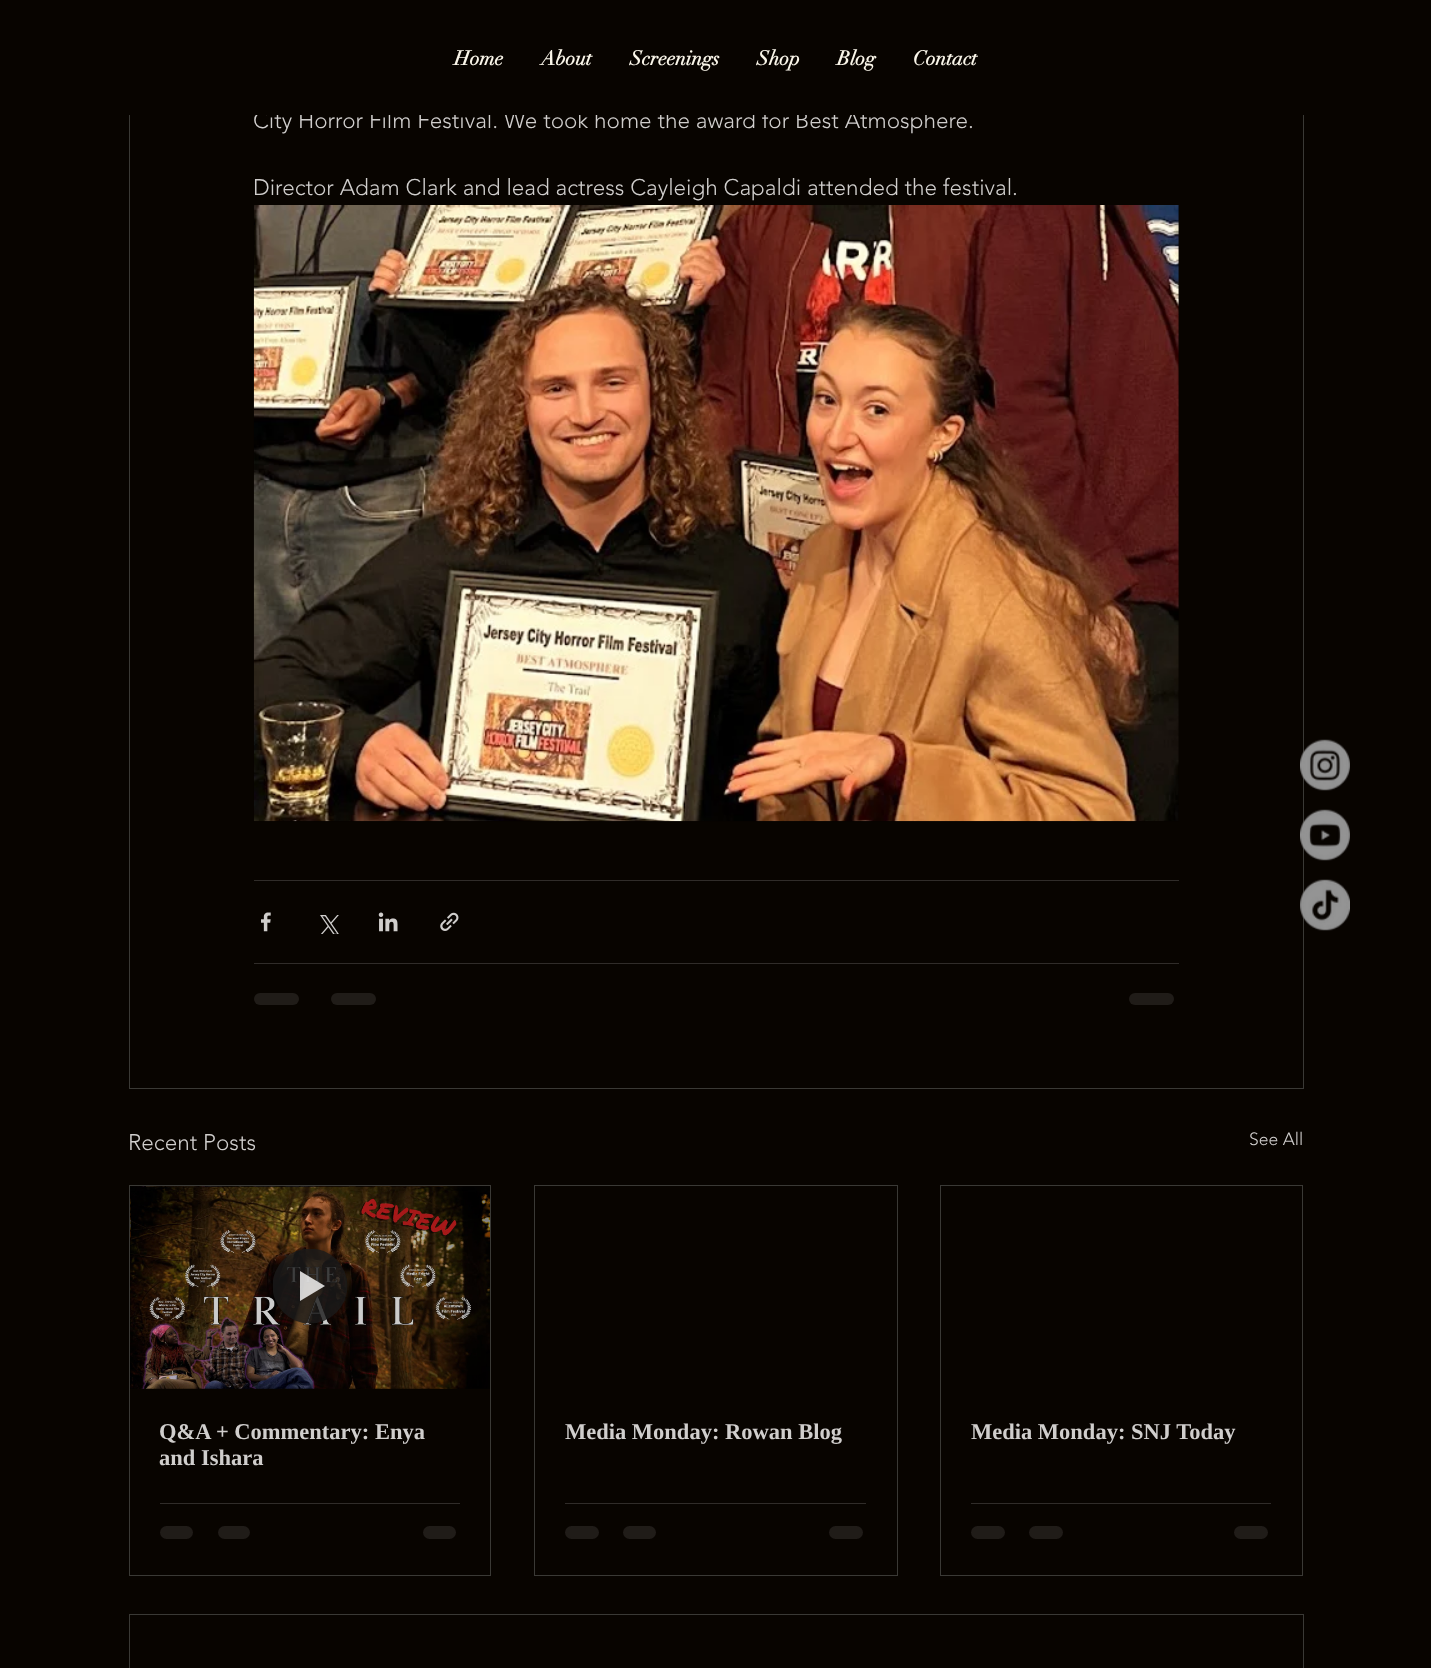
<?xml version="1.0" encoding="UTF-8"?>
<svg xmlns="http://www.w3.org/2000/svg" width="1431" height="1668">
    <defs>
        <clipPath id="clip1"><rect x="273" y="1249" width="75" height="75"/></clipPath>
    </defs>
    <rect width="100%" height="100%" fill="#080400"/>
    <rect x="129.5" y="-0.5" width="1174" height="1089" fill="none" stroke="#3A3935"/>
    <text x="253" y="128" font-family="'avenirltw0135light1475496'" font-size="22.5" font-weight="300" fill="#D0CECC">City Horror Film Festival. We took home the award for Best Atmosphere.</text>
    <rect x="129" y="0" width="1175" height="115" fill="#080400"/>
    <text x="454" y="65" font-family="didot" font-size="20" font-weight="700" fill="#FAF6E9">Home</text>
    <text x="541" y="65" font-family="didot" font-size="20" font-weight="700" fill="#FAF6E9">About</text>
    <text x="630" y="65" font-family="didot" font-size="20" font-weight="700" fill="#FAF6E9">Screenings</text>
    <text x="757" y="65" font-family="didot" font-size="20" font-weight="700" fill="#FAF6E9">Shop</text>
    <text x="837" y="65" font-family="didot" font-size="20" font-weight="700" fill="#FAF6E9">Blog</text>
    <text x="913" y="65" font-family="didot" font-size="20" font-weight="700" fill="#FAF6E9">Contact</text>
    <text x="253" y="195" font-family="'avenirltw0135light1475496'" font-size="22.5" font-weight="300" fill="#D0CECC">Director Adam Clark and lead actress Cayleigh Capaldi attended the festival.</text>
    <image x="253" y="205" width="926" height="617" href="img_01.png"/>
    <rect x="254" y="880" width="925" height="1" fill="#302C29"/>
    <image x="261" y="912" width="10" height="20" href="img_02.png"/>
    <image x="320" y="915" width="19" height="19" href="img_03.png"/>
    <image x="378" y="912" width="20" height="20" href="img_04.png"/>
    <image x="440" y="912" width="19" height="19" href="img_05.png"/>
    <rect x="254" y="963" width="925" height="1" fill="#302C29"/>
    <rect x="254" y="993" width="45" height="12" rx="6" fill="#201C18"/>
    <rect x="331" y="993" width="45" height="12" rx="6" fill="#201C18"/>
    <rect x="1129" y="993" width="45" height="12" rx="6" fill="#201C18"/>
    <text x="128" y="1150" font-family="'avenirltw0135light1475496'" font-size="22.5" font-weight="300" fill="#D0CECC">Recent Posts</text>
    <text x="1249" y="1145" font-family="'avenirltw0135light1475496'" font-size="17.5" font-weight="300" fill="#D0CECC">See All</text>
    <rect x="129.5" y="1185.5" width="361" height="390" fill="none" stroke="#3A3935"/>
    <image x="130" y="1186" width="360" height="203" href="img_06.png"/>
    <g clip-path="url(#clip1)">
        <circle cx="310" cy="1286" r="37.5" fill="#1A1A1A" fill-opacity="0.8"/>
    </g>
    <path d="M 300 1271 V 1301 L 325 1286 Z" fill="#FFFFFF" fill-opacity="0.8"/>
    <text font-family="Liberation Serif" font-size="22.5" font-weight="700" fill="#D0CECC">
        <tspan x="159" y="1439">Q&amp;A + Commentary: Enya</tspan>
        <tspan x="159" y="1465">and Ishara</tspan>
    </text>
    <rect x="160" y="1503" width="300" height="1" fill="#302C29"/>
    <rect x="160" y="1526" width="33" height="13" rx="6.5" fill="#201C18"/>
    <rect x="218" y="1526" width="32" height="13" rx="6.5" fill="#201C18"/>
    <rect x="423" y="1526" width="33" height="13" rx="6.5" fill="#201C18"/>
    <rect x="534.5" y="1185.5" width="363" height="390" fill="none" stroke="#3A3935"/>
    <text x="565" y="1439" font-family="Liberation Serif" font-size="22.5" font-weight="700" fill="#D0CECC">Media Monday: Rowan Blog</text>
    <rect x="565" y="1503" width="301" height="1" fill="#302C29"/>
    <rect x="565" y="1526" width="34" height="13" rx="6.5" fill="#201C18"/>
    <rect x="623" y="1526" width="33" height="13" rx="6.5" fill="#201C18"/>
    <rect x="829" y="1526" width="34" height="13" rx="6.5" fill="#201C18"/>
    <rect x="940.5" y="1185.5" width="362" height="390" fill="none" stroke="#3A3935"/>
    <text x="971" y="1439" font-family="Liberation Serif" font-size="22.5" font-weight="700" fill="#D0CECC">Media Monday: SNJ Today</text>
    <rect x="971" y="1503" width="300" height="1" fill="#302C29"/>
    <rect x="971" y="1526" width="34" height="13" rx="6.5" fill="#201C18"/>
    <rect x="1029" y="1526" width="34" height="13" rx="6.5" fill="#201C18"/>
    <rect x="1234" y="1526" width="34" height="13" rx="6.5" fill="#201C18"/>
    <rect x="129.5" y="1614.5" width="1174" height="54" fill="none" stroke="#3A3935"/>
    <image x="1300" y="739" width="50" height="52" href="img_07.png"/>
    <image x="1300" y="809" width="50" height="52" href="img_08.png"/>
    <image x="1300" y="879" width="50" height="52" href="img_09.png"/>
</svg>
